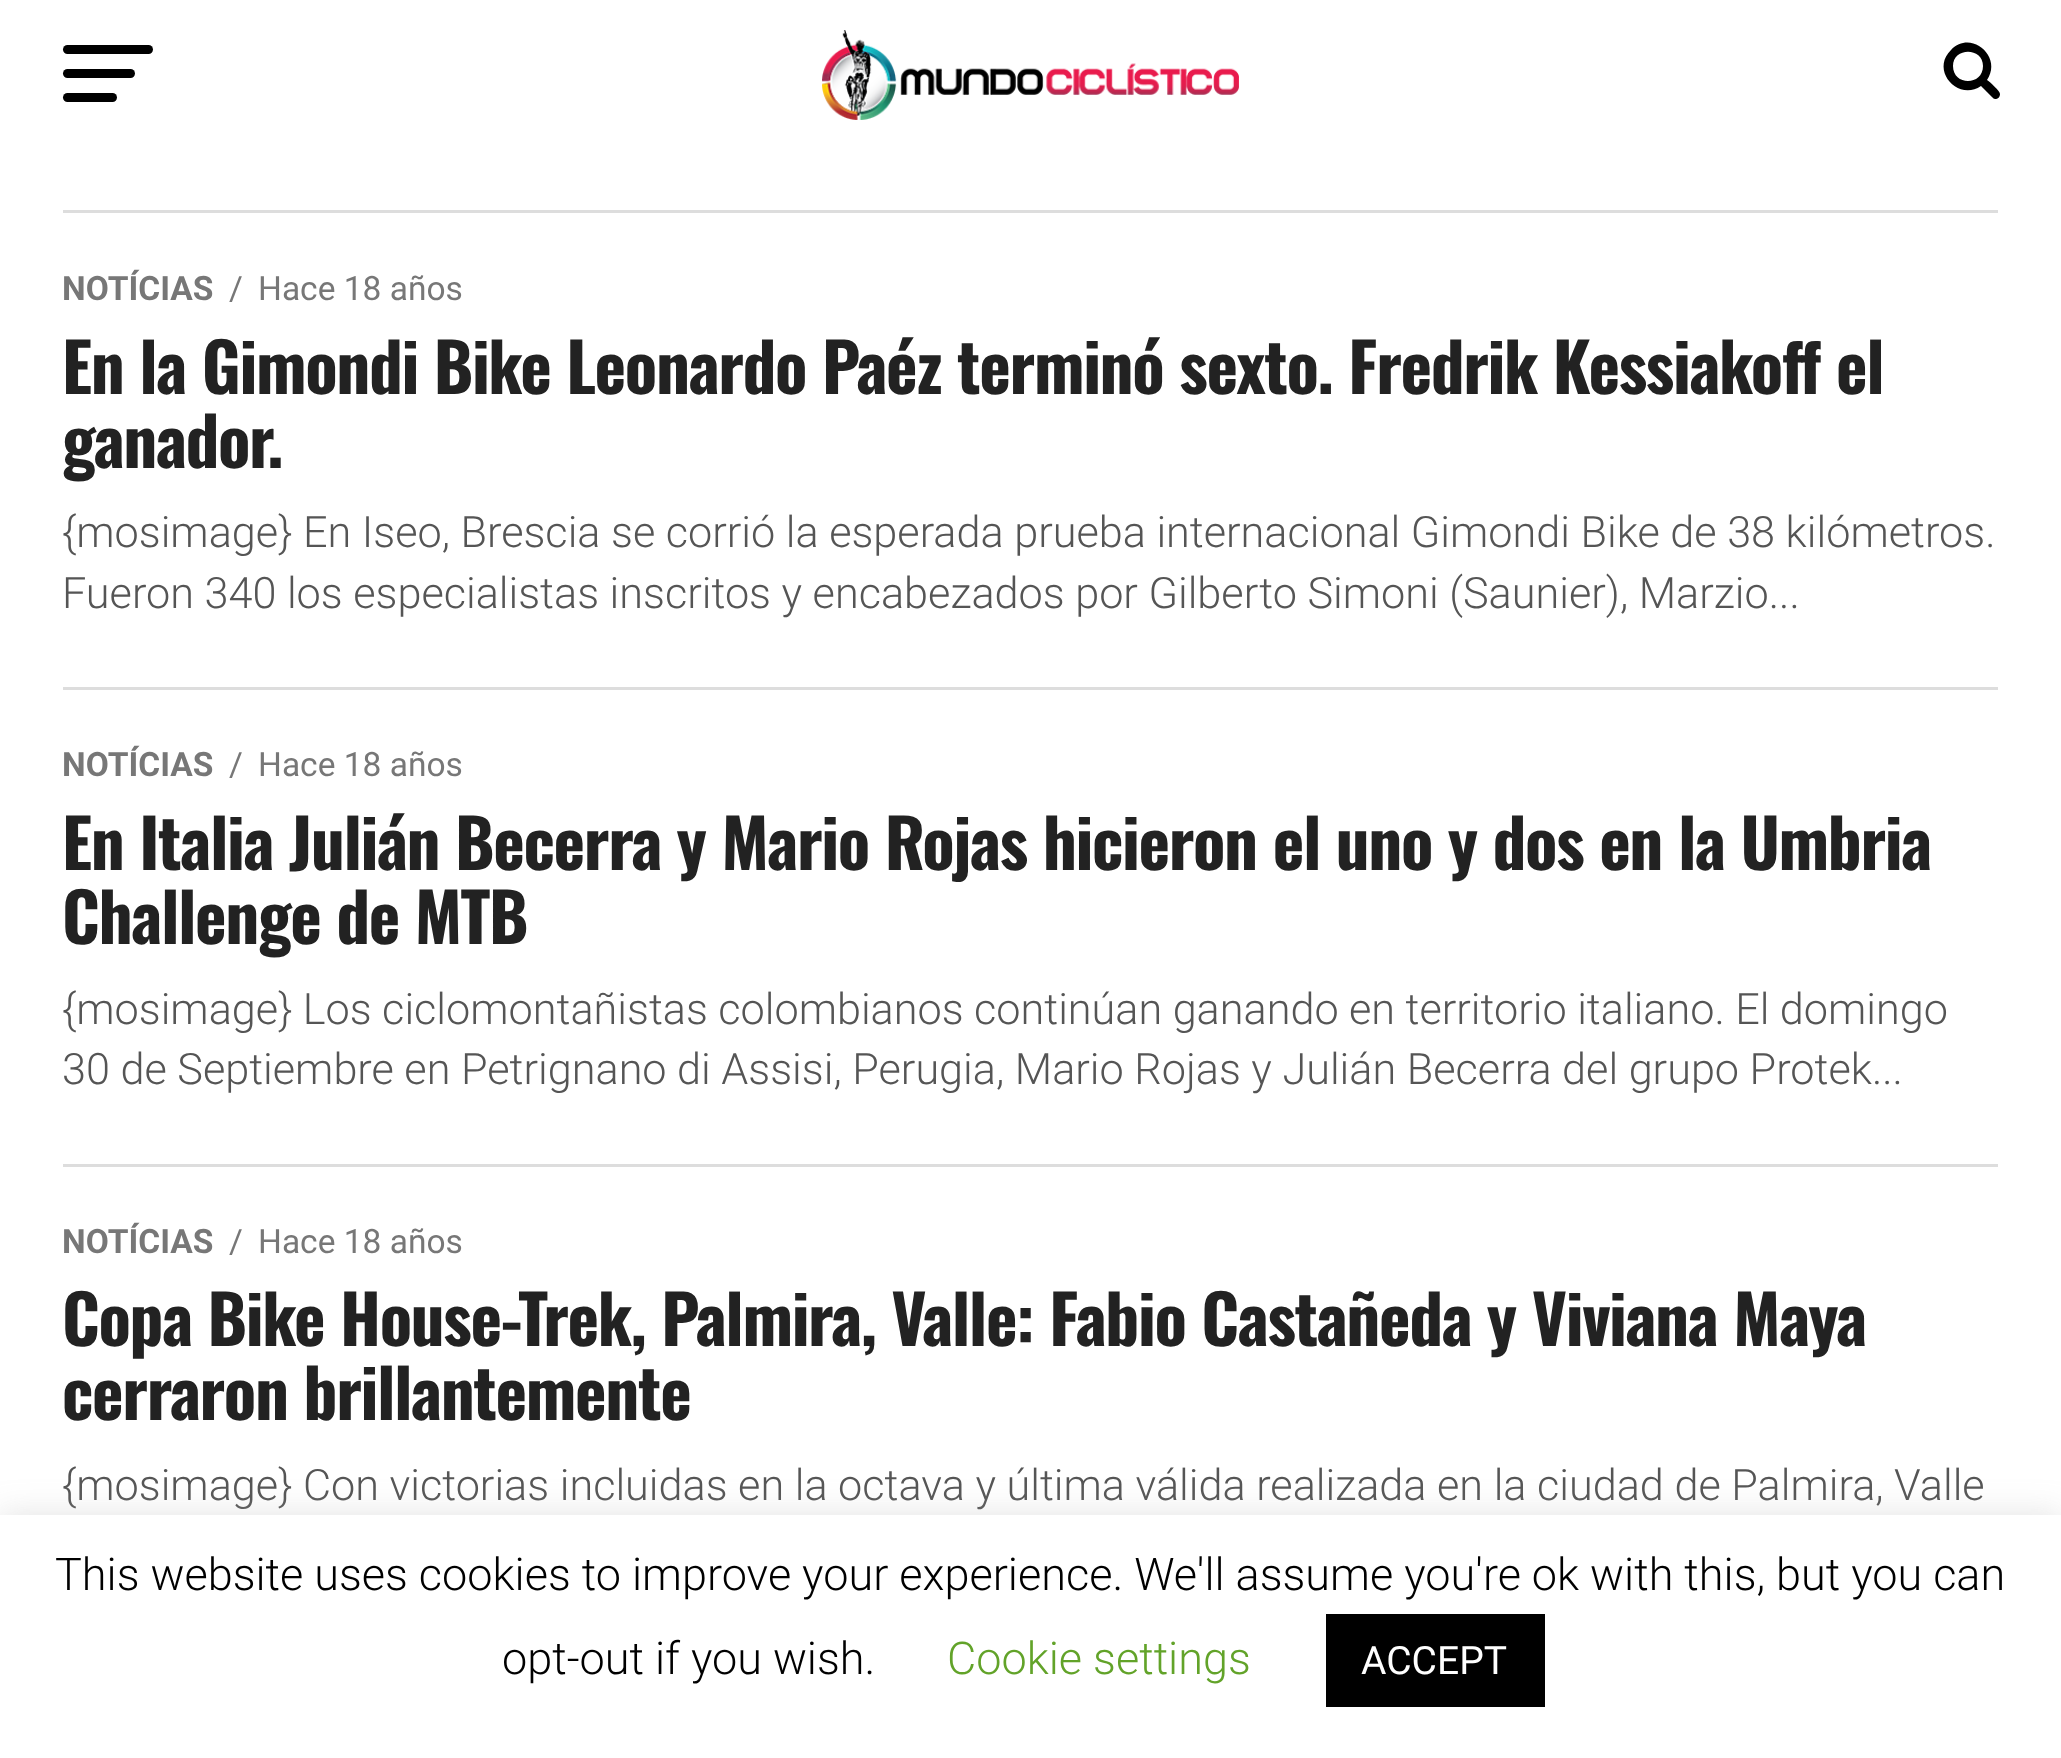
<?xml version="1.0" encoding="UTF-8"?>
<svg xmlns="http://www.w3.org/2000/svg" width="2061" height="1758">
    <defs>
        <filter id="blur1" x="-50%" y="-200%" width="200%" height="500%"><feGaussianBlur stdDeviation="15"/></filter>
    </defs>
    <rect width="100%" height="100%" fill="#FFFFFF"/>
    <rect x="63" y="45" width="90" height="9" rx="4.5" fill="#000000"/>
    <rect x="63" y="69" width="72" height="9" rx="4.5" fill="#000000"/>
    <rect x="63" y="93" width="54" height="9" rx="4.5" fill="#000000"/>
    <image x="822" y="30" width="417" height="90" href="img_01.png"/>
    <path d="M 1983 66 C 1983 86 1953 86 1953 66 C 1953 47 1983 47 1983 66 Z M 2000 94 C 2000 91 1990 82 1987 80 C 2003 57 1971 29 1951 50 C 1930 70 1958 102 1981 86 L 1992 97 C 1993 98 1994 99 1995 99 C 1998 99 2000 97 2000 94 Z" fill="#000000"/>
    <rect x="63" y="210" width="1935" height="3" fill="#DDDDDD"/>
    <text x="62" y="300" font-family="Roboto" font-size="33.5" font-weight="700" fill="#777777">NOTÍCIAS</text>
    <text x="229" y="300" font-family="Roboto" font-size="33.5" fill="#777777">/</text>
    <text x="258" y="300" font-family="Roboto" font-size="33.5" fill="#777777">Hace 18 años</text>
    <text font-family="Oswald" font-size="67.2" font-weight="700" letter-spacing="-1.35" fill="#222222">
        <tspan x="62" y="394">En la Gimondi Bike Leonardo Paéz terminó sexto. Fredrik Kessiakoff el</tspan>
        <tspan x="62" y="468">ganador.</tspan>
    </text>
    <text font-family="Roboto" font-size="43.2" font-weight="300" fill="#555555">
        <tspan x="62" y="547">{mosimage} En Iseo, Brescia se corrió la esperada prueba internacional Gimondi Bike de 38 kilómetros.</tspan>
        <tspan x="62" y="608">Fueron 340 los especialistas inscritos y encabezados por Gilberto Simoni (Saunier), Marzio...</tspan>
    </text>
    <rect x="63" y="687" width="1935" height="3" fill="#DDDDDD"/>
    <text x="62" y="776" font-family="Roboto" font-size="33.5" font-weight="700" fill="#777777">NOTÍCIAS</text>
    <text x="229" y="776" font-family="Roboto" font-size="33.5" fill="#777777">/</text>
    <text x="258" y="776" font-family="Roboto" font-size="33.5" fill="#777777">Hace 18 años</text>
    <text font-family="Oswald" font-size="67.2" font-weight="700" letter-spacing="-1.35" fill="#222222">
        <tspan x="62" y="870">En Italia Julián Becerra y Mario Rojas hicieron el uno y dos en la Umbria</tspan>
        <tspan x="62" y="944">Challenge de MTB</tspan>
    </text>
    <text font-family="Roboto" font-size="43.2" font-weight="300" fill="#555555">
        <tspan x="62" y="1024" word-spacing="-0.1">{mosimage} Los ciclomontañistas colombianos continúan ganando en territorio italiano. El domingo</tspan>
        <tspan x="62" y="1084">30 de Septiembre en Petrignano di Assisi, Perugia, Mario Rojas y Julián Becerra del grupo Protek...</tspan>
    </text>
    <rect x="63" y="1164" width="1935" height="3" fill="#DDDDDD"/>
    <text x="62" y="1253" font-family="Roboto" font-size="33.5" font-weight="700" fill="#777777">NOTÍCIAS</text>
    <text x="229" y="1253" font-family="Roboto" font-size="33.5" fill="#777777">/</text>
    <text x="258" y="1253" font-family="Roboto" font-size="33.5" fill="#777777">Hace 18 años</text>
    <text font-family="Oswald" font-size="67.2" font-weight="700" letter-spacing="-1.35" fill="#222222">
        <tspan x="62" y="1346">Copa Bike House-Trek, Palmira, Valle: Fabio Castañeda y Viviana Maya</tspan>
        <tspan x="62" y="1420">cerraron brillantemente</tspan>
    </text>
    <text x="62" y="1500" font-family="Roboto" font-size="43.2" font-weight="300" fill="#555555">{mosimage} Con victorias incluidas en la octava y última válida realizada en la ciudad de Palmira, Valle</text>
    <rect x="0" y="1512" width="2061" height="243" fill="#ACABAB" fill-opacity="0.3" filter="url(#blur1)"/>
    <rect x="0" y="1515" width="2061" height="243" fill="#FFFFFF"/>
    <text x="55" y="1590" font-family="Roboto" font-size="45" font-weight="300" fill="#000000">This website uses cookies to improve your experience. We'll assume you're ok with this, but you can</text>
    <text x="502" y="1674" font-family="Roboto" font-size="45" font-weight="300" fill="#000000">opt-out if you wish.</text>
    <text x="947" y="1674" font-family="Roboto" font-size="45" font-weight="300" fill="#62A329">Cookie settings</text>
    <rect x="1326" y="1614" width="219" height="93" fill="#000000"/>
    <text x="1361" y="1674" font-family="Roboto" font-size="39" fill="#FFFFFF">ACCEPT</text>
</svg>
